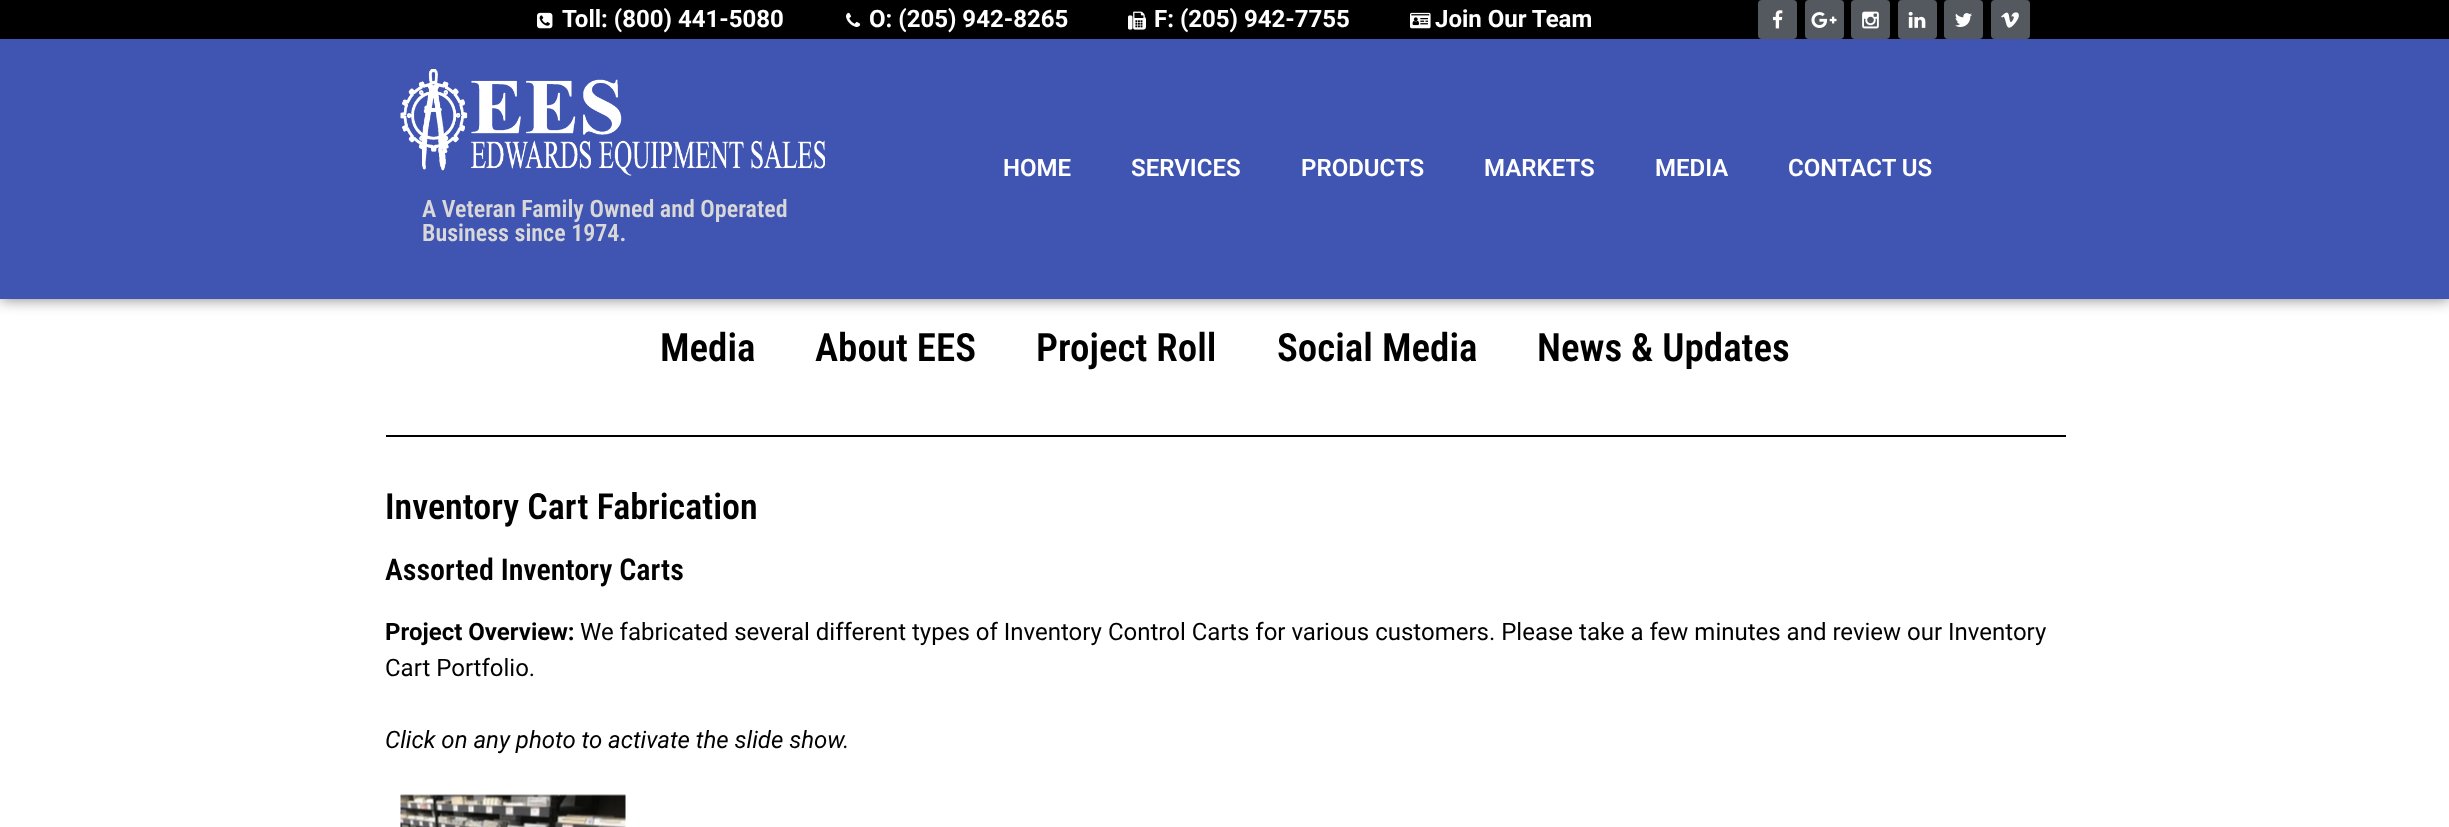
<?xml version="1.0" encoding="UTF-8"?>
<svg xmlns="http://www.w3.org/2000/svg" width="2449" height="827">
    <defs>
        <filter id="blur1" x="-50%" y="-200%" width="200%" height="500%"><feGaussianBlur stdDeviation="7.5"/></filter>
    </defs>
    <rect width="100%" height="100%" fill="#FFFFFF"/>
    <rect x="0" y="39" width="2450" height="260" fill="#000000" fill-opacity="0.5" filter="url(#blur1)"/>
    <rect x="0" y="0" width="2449" height="39" fill="#000000"/>
    <image x="537" y="12" width="16" height="17" href="img_01.png"/>
    <text x="562" y="27" font-family="Roboto" font-size="24" font-weight="700" fill="#FFFFFF">Toll: (800) 441-5080</text>
    <image x="846" y="12" width="15" height="15" href="img_02.png"/>
    <text x="869" y="27" font-family="Roboto" font-size="24" font-weight="700" fill="#FFFFFF">O: (205) 942-8265</text>
    <image x="1128" y="11" width="18" height="19" href="img_03.png"/>
    <text x="1154" y="27" font-family="Roboto" font-size="24" font-weight="700" fill="#FFFFFF">F: (205) 942-7755</text>
    <image x="1410" y="12" width="21" height="17" href="img_04.png"/>
    <text x="1435" y="27" font-family="Roboto" font-size="24" font-weight="700" fill="#FFFFFF">Join Our Team</text>
    <rect x="1758" y="0" width="39" height="39" rx="4" fill="#54595F"/>
    <image x="1772" y="10" width="11" height="19" href="img_05.png"/>
    <rect x="1805" y="0" width="39" height="39" rx="4" fill="#54595F"/>
    <image x="1811" y="12" width="26" height="16" href="img_06.png"/>
    <rect x="1851" y="0" width="39" height="39" rx="4" fill="#54595F"/>
    <image x="1862" y="11" width="17" height="18" href="img_07.png"/>
    <rect x="1898" y="0" width="39" height="39" rx="4" fill="#54595F"/>
    <image x="1908" y="11" width="18" height="17" href="img_08.png"/>
    <rect x="1944" y="0" width="39" height="39" rx="4" fill="#54595F"/>
    <image x="1955" y="13" width="17" height="14" href="img_09.png"/>
    <rect x="1991" y="0" width="39" height="39" rx="4" fill="#54595F"/>
    <image x="2001" y="12" width="18" height="16" href="img_10.png"/>
    <rect x="0" y="39" width="2449" height="260" fill="#4054B2"/>
    <text x="1003" y="176" font-family="Roboto" font-size="24" font-weight="600" fill="#FFFFFF">HOME</text>
    <text x="1131" y="176" font-family="Roboto" font-size="24" font-weight="600" fill="#FFFFFF">SERVICES</text>
    <text x="1301" y="176" font-family="Roboto" font-size="24" font-weight="600" fill="#FFFFFF">PRODUCTS</text>
    <text x="1484" y="176" font-family="Roboto" font-size="24" font-weight="600" fill="#FFFFFF">MARKETS</text>
    <text x="1655" y="176" font-family="Roboto" font-size="24" font-weight="600" fill="#FFFFFF">MEDIA</text>
    <text x="1788" y="176" font-family="Roboto" font-size="24" font-weight="600" fill="#FFFFFF">CONTACT US</text>
    <image x="400" y="69" width="425" height="107" href="img_11.png"/>
    <text font-family="Roboto Condensed" font-size="24" font-weight="600" fill="#D8D8D8">
        <tspan x="422" y="217">A Veteran Family Owned and Operated</tspan>
        <tspan x="422" y="241">Business since 1974.</tspan>
    </text>
    <text x="660" y="361" font-family="Roboto Condensed" font-size="39" font-weight="600" fill="#000000">Media</text>
    <text x="815" y="361" font-family="Roboto Condensed" font-size="39" font-weight="600" fill="#000000">About EES</text>
    <text x="1036" y="361" font-family="Roboto Condensed" font-size="39" font-weight="600" fill="#000000">Project Roll</text>
    <text x="1277" y="361" font-family="Roboto Condensed" font-size="39" font-weight="600" fill="#000000">Social Media</text>
    <text x="1537" y="361" font-family="Roboto Condensed" font-size="39" font-weight="600" fill="#000000">News &amp; Updates</text>
    <rect x="386" y="435" width="1680" height="2" fill="#000000"/>
    <text x="385" y="519" font-family="Roboto Condensed" font-size="36" font-weight="600" fill="#000000">Inventory Cart Fabrication</text>
    <text x="385" y="580" font-family="Roboto Condensed" font-size="30" font-weight="600" fill="#000000">Assorted Inventory Carts</text>
    <text x="385" y="640" font-family="Roboto" font-size="24" font-weight="700" fill="#000000">Project Overview:</text>
    <text x="580" y="640" font-family="Roboto" font-size="24" fill="#000000">We fabricated several different types of Inventory Control Carts for various customers. Please take a few minutes and review our Inventory</text>
    <text x="385" y="676" font-family="Roboto" font-size="24" fill="#000000">Cart Portfolio.</text>
    <text x="385" y="748" font-family="Roboto" font-size="24" font-style="italic" fill="#000000">Click on any photo to activate the slide show.</text>
    <image x="400" y="794" width="226" height="33" href="img_12.png"/>
</svg>
